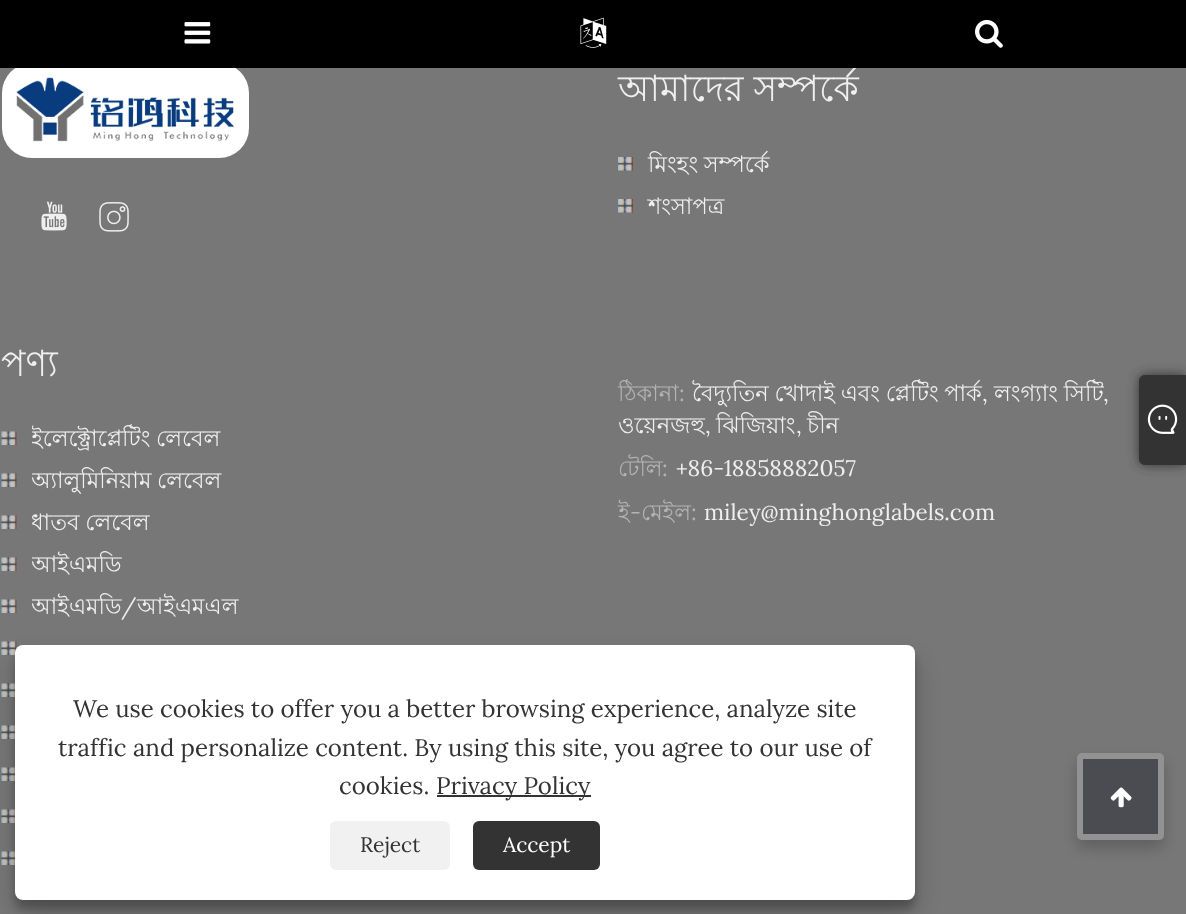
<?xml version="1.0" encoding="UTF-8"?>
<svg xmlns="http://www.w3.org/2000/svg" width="1186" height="914">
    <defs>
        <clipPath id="clip1"><rect x="32" y="419" width="189" height="42"/></clipPath>
        <clipPath id="clip2"><rect x="32" y="461" width="190" height="42"/></clipPath>
        <clipPath id="clip3"><rect x="32" y="503" width="118" height="42"/></clipPath>
        <clipPath id="clip4"><rect x="32" y="545" width="90" height="42"/></clipPath>
        <clipPath id="clip5"><rect x="32" y="587" width="207" height="42"/></clipPath>
        <filter id="blur1" x="-50%" y="-200%" width="200%" height="500%"><feGaussianBlur stdDeviation="6"/></filter>
        <filter id="blur2" x="-50%" y="-200%" width="200%" height="500%"><feGaussianBlur stdDeviation="4.5"/></filter>
        <filter id="blur3" x="-50%" y="-200%" width="200%" height="500%"><feGaussianBlur stdDeviation="15"/></filter>
        <clipPath id="clip6"><path d="M 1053 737 H 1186 V 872 H 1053 Z M 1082 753 H 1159 C 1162 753 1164 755 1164 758 V 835 C 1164 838 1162 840 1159 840 H 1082 C 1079 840 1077 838 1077 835 V 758 C 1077 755 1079 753 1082 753 Z" clip-rule="evenodd"/></clipPath>
        <filter id="blur4" x="-50%" y="-200%" width="200%" height="500%"><feGaussianBlur stdDeviation="7.5"/></filter>
    </defs>
    <rect width="100%" height="100%" fill="#777777"/>
    <rect x="2" y="63" width="247" height="95" rx="30" fill="#FFFFFF"/>
    <text x="618" y="101" font-family="Lohit Bengali" font-size="36" fill="#EFEFEF">আমাদের সম্পর্কে</text>
    <rect x="0" y="0" width="1186" height="68" fill="#000000"/>
    <image x="184" y="22" width="27" height="22" href="img_01.png"/>
    <image x="580" y="17" width="27" height="31" href="img_02.png"/>
    <image x="975" y="19" width="28" height="29" href="img_03.png"/>
    <image x="16" y="77" width="218" height="65" href="img_04.png"/>
    <image x="41" y="201" width="26" height="30" href="img_05.png"/>
    <image x="99" y="202" width="30" height="30" href="img_06.png"/>
    <image x="618" y="157" width="15" height="14" href="img_07.png"/>
    <text x="648" y="172" word-spacing="-0.5" font-family="Lohit Bengali" font-size="22.5" fill="#EFEFEF">মিংহং সম্পর্কে</text>
    <image x="618" y="199" width="15" height="14" href="img_07.png"/>
    <text x="648" y="214" font-family="Lohit Bengali" font-size="22.5" fill="#EFEFEF">শংসাপত্র</text>
    <text x="1" y="376" font-family="Lohit Bengali" font-size="36" fill="#EFEFEF">পণ্য</text>
    <image x="1" y="431" width="16" height="14" href="img_08.png"/>
    <g clip-path="url(#clip1)">
        <text x="31" y="446" word-spacing="-0.5" font-family="Lohit Bengali" font-size="22.5" fill="#EFEFEF">ইলেক্ট্রোপ্লেটিং লেবেল</text>
    </g>
    <image x="1" y="473" width="16" height="14" href="img_08.png"/>
    <g clip-path="url(#clip2)">
        <text x="31" y="488" word-spacing="-0.5" font-family="Lohit Bengali" font-size="22.5" fill="#EFEFEF">অ্যালুমিনিয়াম লেবেল</text>
    </g>
    <image x="1" y="515" width="16" height="14" href="img_08.png"/>
    <g clip-path="url(#clip3)">
        <text x="31" y="530" word-spacing="-0.5" font-family="Lohit Bengali" font-size="22.5" fill="#EFEFEF">ধাতব লেবেল</text>
    </g>
    <image x="1" y="557" width="16" height="14" href="img_08.png"/>
    <g clip-path="url(#clip4)">
        <text x="31" y="572" font-family="Lohit Bengali" font-size="22.5" fill="#EFEFEF">আইএমডি</text>
    </g>
    <image x="1" y="599" width="16" height="14" href="img_08.png"/>
    <g clip-path="url(#clip5)">
        <text x="31" y="614" font-family="Lohit Bengali" font-size="22.5" fill="#EFEFEF">আইএমডি</text>
    </g>
    <text x="121" y="614" font-family="Lora" font-size="22.5" fill="#EFEFEF">/</text>
    <text x="137" y="614" font-family="Lohit Bengali" font-size="22.5" fill="#EFEFEF">আইএমএল</text>
    <image x="1" y="641" width="16" height="14" href="img_08.png"/>
    <image x="1" y="683" width="14" height="14" href="img_09.png"/>
    <image x="1" y="725" width="14" height="14" href="img_09.png"/>
    <image x="1" y="767" width="14" height="14" href="img_09.png"/>
    <image x="1" y="809" width="14" height="14" href="img_09.png"/>
    <image x="1" y="851" width="14" height="14" href="img_09.png"/>
    <text x="618" y="401" font-family="Lohit Bengali" font-size="22.5" fill="#B3B3B5">ঠিকানা</text>
    <text x="679" y="401" font-family="Lora" font-size="22.5" fill="#B3B3B5">:</text>
    <text x="692" y="401" word-spacing="-0.5" font-family="Lohit Bengali" font-size="22.5" fill="#EFEFEF">বৈদ্যুতিন খোদাই এবং প্লেটিং পার্ক</text>
    <text x="982" y="401" font-family="Lora" font-size="22.5" fill="#EFEFEF">,</text>
    <text x="994" y="401" word-spacing="-0.5" font-family="Lohit Bengali" font-size="22.5" fill="#EFEFEF">লংগ্যাং সিটি</text>
    <text x="1103" y="401" font-family="Lora" font-size="22.5" fill="#EFEFEF">,</text>
    <text x="618" y="433" font-family="Lohit Bengali" font-size="22.5" fill="#EFEFEF">ওয়েনজহু</text>
    <text x="705" y="433" font-family="Lora" font-size="22.5" fill="#EFEFEF">,</text>
    <text x="716" y="433" font-family="Lohit Bengali" font-size="22.5" fill="#EFEFEF">ঝিজিয়াং</text>
    <text x="796" y="433" font-family="Lora" font-size="22.5" fill="#EFEFEF">,</text>
    <text x="807" y="433" font-family="Lohit Bengali" font-size="22.5" fill="#EFEFEF">চীন</text>
    <text x="618" y="476" font-family="Lohit Bengali" font-size="22.5" fill="#B3B3B5">টেলি</text>
    <text x="662" y="476" font-family="Lora" font-size="22.5" fill="#B3B3B5">:</text>
    <text x="676" y="476" font-family="Lora" font-size="22.5" fill="#EFEFEF">+86-18858882057</text>
    <text x="618" y="520" font-family="Lohit Bengali" font-size="22.5" fill="#B3B3B5">ই</text>
    <text x="630" y="520" font-family="Lora" font-size="22.5" fill="#B3B3B5">-</text>
    <text x="641" y="520" font-family="Lohit Bengali" font-size="22.5" fill="#B3B3B5">মেইল</text>
    <text x="691" y="520" font-family="Lora" font-size="22.5" fill="#B3B3B5">:</text>
    <text x="704" y="520" font-family="Lora" font-size="22.5" fill="#EFEFEF">miley@minghonglabels.com</text>
    <rect x="1139" y="375" width="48" height="90" rx="6" fill="#333333" filter="url(#blur1)"/>
    <path d="M 1145 375 H 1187 V 465 H 1145 C 1141.5 465 1139 462.5 1139 459 V 381 C 1139 377.5 1141.5 375 1145 375 Z" fill="#333333"/>
    <image x="1147" y="404" width="31" height="30" href="img_10.png"/>
    <rect x="15" y="654" width="900" height="255" rx="8" fill="#000000" fill-opacity="0.23" filter="url(#blur2)"/>
    <rect x="15" y="660" width="900" height="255" rx="8" fill="#000000" fill-opacity="0.19" filter="url(#blur3)"/>
    <rect x="15" y="645" width="900" height="255" rx="8" fill="#FFFFFF"/>
    <text x="73" y="717" font-family="Lora" font-size="24" fill="#333333">We use cookies to offer you a better browsing experience, analyze site</text>
    <text x="58" y="756" font-family="Lora" font-size="24" fill="#333333">traffic and personalize content. By using this site, you agree to our use of</text>
    <text x="339" y="794" font-family="Lora" font-size="24" fill="#333333">cookies.</text>
    <rect x="437" y="795" width="154" height="2" fill="#333333"/>
    <text x="436" y="794" font-family="Lora" font-size="24" fill="#333333">Privacy Policy</text>
    <rect x="330" y="821" width="120" height="49" rx="6" fill="#F1F1F1"/>
    <text x="360" y="852" font-family="Lora" font-size="21" fill="#333333">Reject</text>
    <rect x="473" y="821" width="127" height="49" rx="6" fill="#333333"/>
    <text x="503" y="852" font-family="Lora" font-size="21" fill="#FFFFFF">Accept</text>
    <g clip-path="url(#clip6)">
        <rect x="1077" y="761" width="87" height="87" rx="5" fill="#000000" fill-opacity="0.2" filter="url(#blur4)"/>
    </g>
    <rect x="1083" y="759" width="75" height="75" fill="#4A4C51"/>
    <rect x="1080" y="756" width="81" height="81" rx="2" fill="none" stroke="#FFFFFF" stroke-opacity="0.2" stroke-width="6"/>
    <image x="1110" y="787" width="22" height="21" href="img_11.png"/>
</svg>
